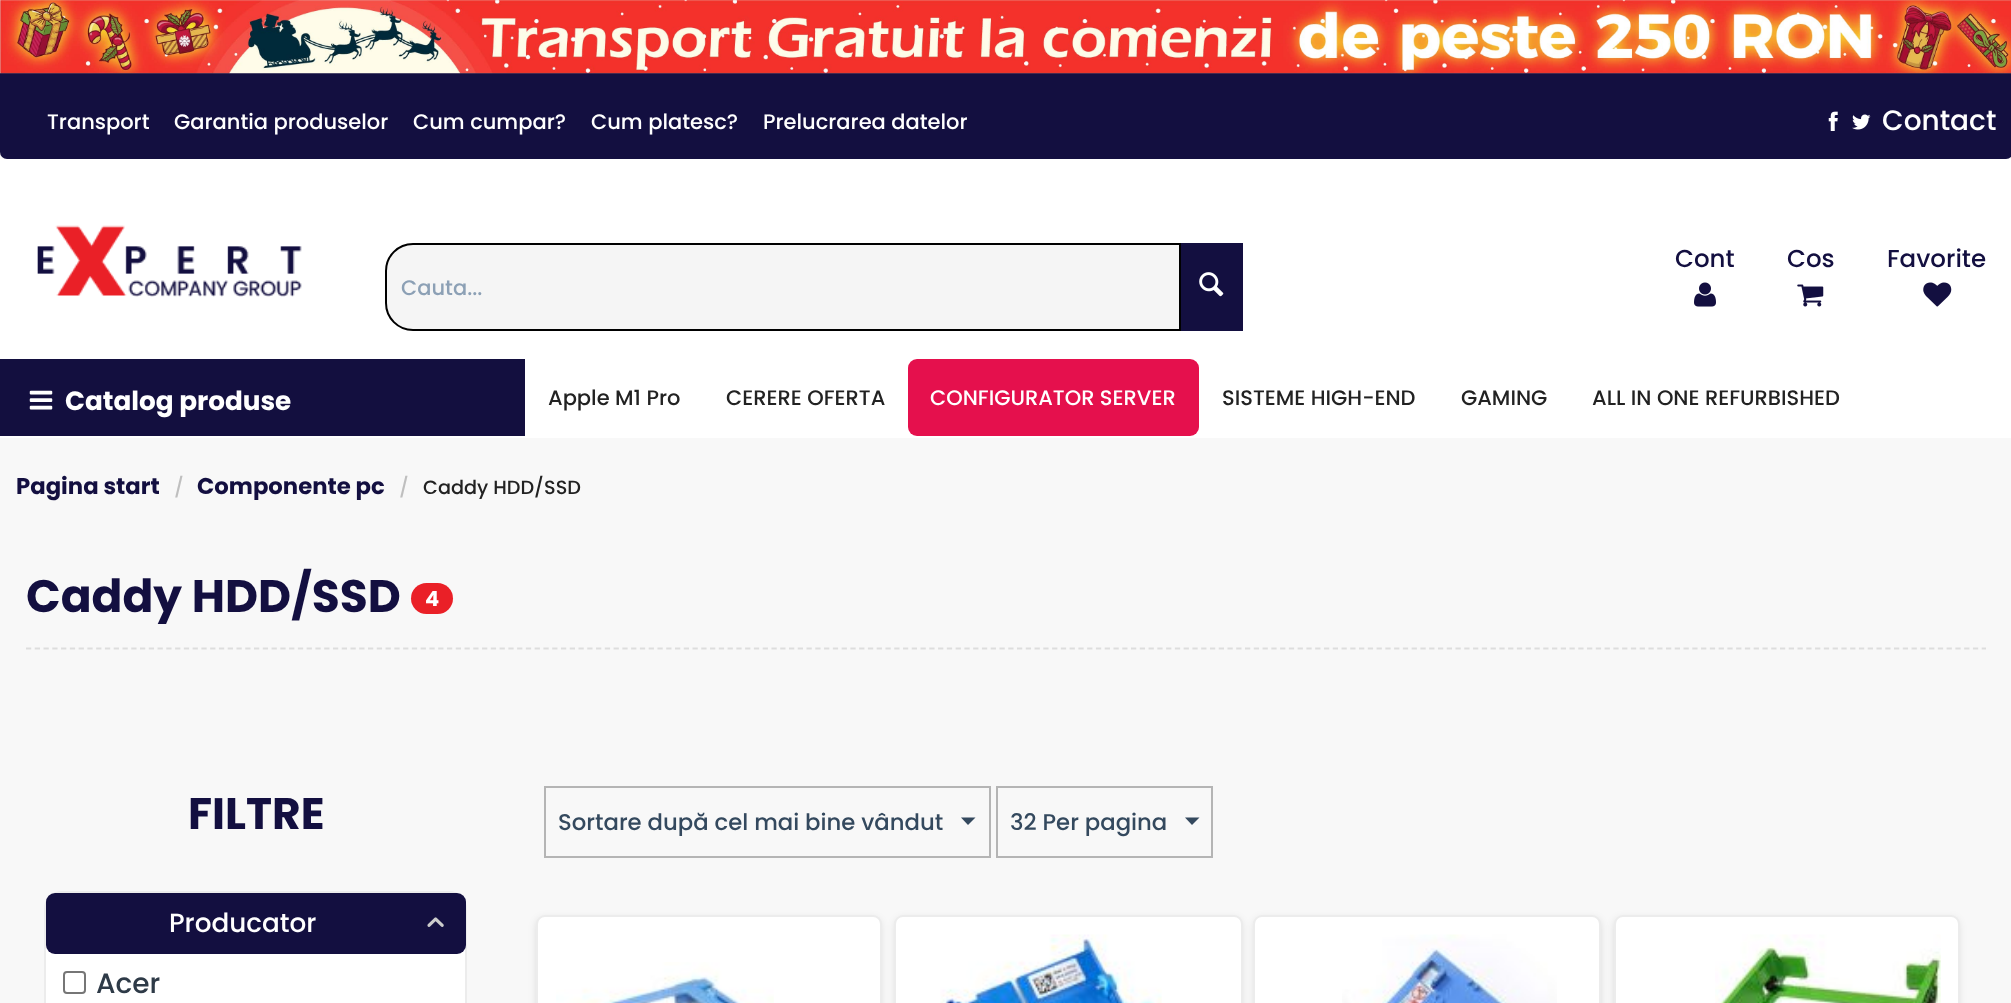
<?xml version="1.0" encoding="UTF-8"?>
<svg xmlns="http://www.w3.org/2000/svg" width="2011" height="1003">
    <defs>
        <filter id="blur1" x="-50%" y="-200%" width="200%" height="500%"><feGaussianBlur stdDeviation="4.5"/></filter>
    </defs>
    <rect width="100%" height="100%" fill="#F8F8F8"/>
    <rect x="0" y="0" width="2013" height="159" rx="7" fill="#130F40"/>
    <image x="0" y="0" width="2011" height="74" href="img_01.png"/>
    <text x="47" y="129" font-family="Poppins" font-size="21" font-weight="500" fill="#FFFFFF">Transport</text>
    <text x="174" y="129" font-family="Poppins" font-size="21" font-weight="500" fill="#FFFFFF">Garantia produselor</text>
    <text x="413" y="129" font-family="Poppins" font-size="21" font-weight="500" fill="#FFFFFF">Cum cumpar?</text>
    <text x="591" y="129" font-family="Poppins" font-size="21" font-weight="500" fill="#FFFFFF">Cum platesc?</text>
    <text x="763" y="129" font-family="Poppins" font-size="21" font-weight="500" fill="#FFFFFF">Prelucrarea datelor</text>
    <image x="1828" y="111" width="10" height="20" href="img_02.png"/>
    <image x="1852" y="114" width="19" height="16" href="img_03.png"/>
    <text x="1882" y="130" font-family="Poppins" font-size="28" font-weight="500" fill="#FFFFFF">Contact</text>
    <rect x="0" y="159" width="2011" height="279" fill="#FFFFFF"/>
    <image x="37" y="225" width="265" height="72" href="img_04.png"/>
    <text x="1675" y="267" font-family="Poppins" font-size="24.5" font-weight="500" fill="#130F40">Cont</text>
    <image x="1694" y="282" width="22" height="25" href="img_05.png"/>
    <text x="1787" y="267" font-family="Poppins" font-size="24.5" font-weight="500" fill="#130F40">Cos</text>
    <image x="1797" y="284" width="27" height="23" href="img_06.png"/>
    <text x="1887" y="267" font-family="Poppins" font-size="24.5" font-weight="500" fill="#130F40">Favorite</text>
    <image x="1923" y="282" width="29" height="25" href="img_07.png"/>
    <path d="M 413 244 H 1180 V 330 H 413 C 398 330 386 318 386 303 V 271 C 386 256 398 244 413 244 Z" fill="#F5F5F5" stroke="#000000" stroke-width="2"/>
    <text x="401" y="295" font-family="Poppins" font-size="21" font-weight="500" fill="#8CA0B5">Cauta...</text>
    <rect x="1181" y="243" width="62" height="88" fill="#130F40"/>
    <image x="1199" y="272" width="25" height="25" href="img_08.png"/>
    <rect x="0" y="359" width="525" height="77" fill="#130F3F"/>
    <image x="29" y="390" width="24" height="20" href="img_09.png"/>
    <text x="65" y="410" font-family="Poppins" font-size="26.25" font-weight="700" fill="#FFFFFF">Catalog produse</text>
    <text x="548" y="405" font-family="Poppins" font-size="21" font-weight="500" fill="#222222">Apple M1 Pro</text>
    <text x="726" y="405" font-family="Poppins" font-size="21" font-weight="500" fill="#222222">CERERE OFERTA</text>
    <rect x="908" y="359" width="291" height="77" rx="9" fill="#E5104D"/>
    <text x="930" y="405" font-family="Poppins" font-size="21" font-weight="500" fill="#FFFFFF">CONFIGURATOR SERVER</text>
    <text x="1222" y="405" font-family="Poppins" font-size="21" font-weight="500" fill="#222222">SISTEME HIGH-END</text>
    <text x="1461" y="405" font-family="Poppins" font-size="21" font-weight="500" fill="#222222">GAMING</text>
    <text x="1592" y="405" font-family="Poppins" font-size="21" font-weight="500" fill="#222222">ALL IN ONE REFURBISHED</text>
    <text x="16" y="494" font-family="Poppins" font-size="22.75" font-weight="700" fill="#130F40">Pagina start</text>
    <text x="174" y="494" font-family="Poppins" font-size="19.25" font-weight="500" fill="#BFBFBF">/</text>
    <text x="197" y="494" font-family="Poppins" font-size="22.75" font-weight="700" fill="#130F40">Componente pc</text>
    <text x="399" y="494" font-family="Poppins" font-size="19.25" font-weight="500" fill="#BFBFBF">/</text>
    <text x="423" y="494" font-family="Poppins" font-size="19.25" font-weight="500" fill="#222222">Caddy HDD/SSD</text>
    <path d="M 26 648.5 H 1986" fill="none" stroke="#DDDDDD" stroke-width="1.8" stroke-dasharray="5.25 3.52"/>
    <text x="26" y="612" font-family="Poppins" font-size="45.5" font-weight="700" fill="#130F40">Caddy HDD/SSD</text>
    <rect x="411" y="583" width="42" height="31" rx="15.5" fill="#EA2027"/>
    <text x="425" y="606" font-family="Poppins" font-size="21" font-weight="700" fill="#FFFFFF">4</text>
    <text x="188" y="829" font-family="Poppins" font-size="44" font-weight="700" fill="#130F40">FILTRE</text>
    <rect x="45" y="892" width="421" height="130" rx="17" fill="#FFFFFF" stroke="#ECECEC" stroke-width="2"/>
    <rect x="46" y="893" width="420" height="61" rx="9" fill="#130F40"/>
    <text x="169" y="932" font-family="Poppins" font-size="26.25" font-weight="500" fill="#FFFFFF">Producator</text>
    <image x="427" y="917" width="17" height="10" href="img_10.png"/>
    <rect x="64" y="972" width="21" height="21" rx="3" fill="none" stroke="#767676" stroke-width="2"/>
    <text x="96" y="993" font-family="Poppins" font-size="28" font-weight="500" fill="#2E3A47">Acer</text>
    <rect x="545" y="787" width="445" height="70" fill="none" stroke="#B5B5B5" stroke-width="2"/>
    <text x="558" y="830" font-family="Poppins" font-size="22.75" font-weight="500" fill="#34495E">Sortare după cel mai bine vândut</text>
    <path d="M 968 825 L 961 817.5 H 975.5 Z" fill="#34495E"/>
    <rect x="997" y="787" width="215" height="70" fill="none" stroke="#B5B5B5" stroke-width="2"/>
    <text x="1010" y="830" font-family="Poppins" font-size="22.75" font-weight="500" fill="#34495E">32 Per pagina</text>
    <path d="M 1192 825 L 1185 817.5 H 1199.5 Z" fill="#34495E"/>
    <rect x="537" y="919" width="343" height="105" rx="7" fill="#000000" fill-opacity="0.14" filter="url(#blur1)"/>
    <rect x="537" y="916" width="344" height="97" rx="8" fill="#FFFFFF" stroke="#ECECEC" stroke-width="2"/>
    <image x="556" y="962" width="218" height="41" href="img_11.png"/>
    <rect x="896" y="919" width="345" height="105" rx="7" fill="#000000" fill-opacity="0.14" filter="url(#blur1)"/>
    <rect x="895" y="916" width="347" height="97" rx="8" fill="#FFFFFF" stroke="#ECECEC" stroke-width="2"/>
    <image x="940" y="934" width="222" height="69" href="img_12.png"/>
    <rect x="1255" y="919" width="345" height="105" rx="7" fill="#000000" fill-opacity="0.14" filter="url(#blur1)"/>
    <rect x="1254" y="916" width="346" height="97" rx="8" fill="#FFFFFF" stroke="#ECECEC" stroke-width="2"/>
    <image x="1342" y="934" width="215" height="69" href="img_13.png"/>
    <rect x="1615" y="919" width="343" height="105" rx="7" fill="#000000" fill-opacity="0.14" filter="url(#blur1)"/>
    <rect x="1615" y="916" width="344" height="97" rx="8" fill="#FFFFFF" stroke="#ECECEC" stroke-width="2"/>
    <image x="1715" y="934" width="226" height="69" href="img_14.png"/>
</svg>
